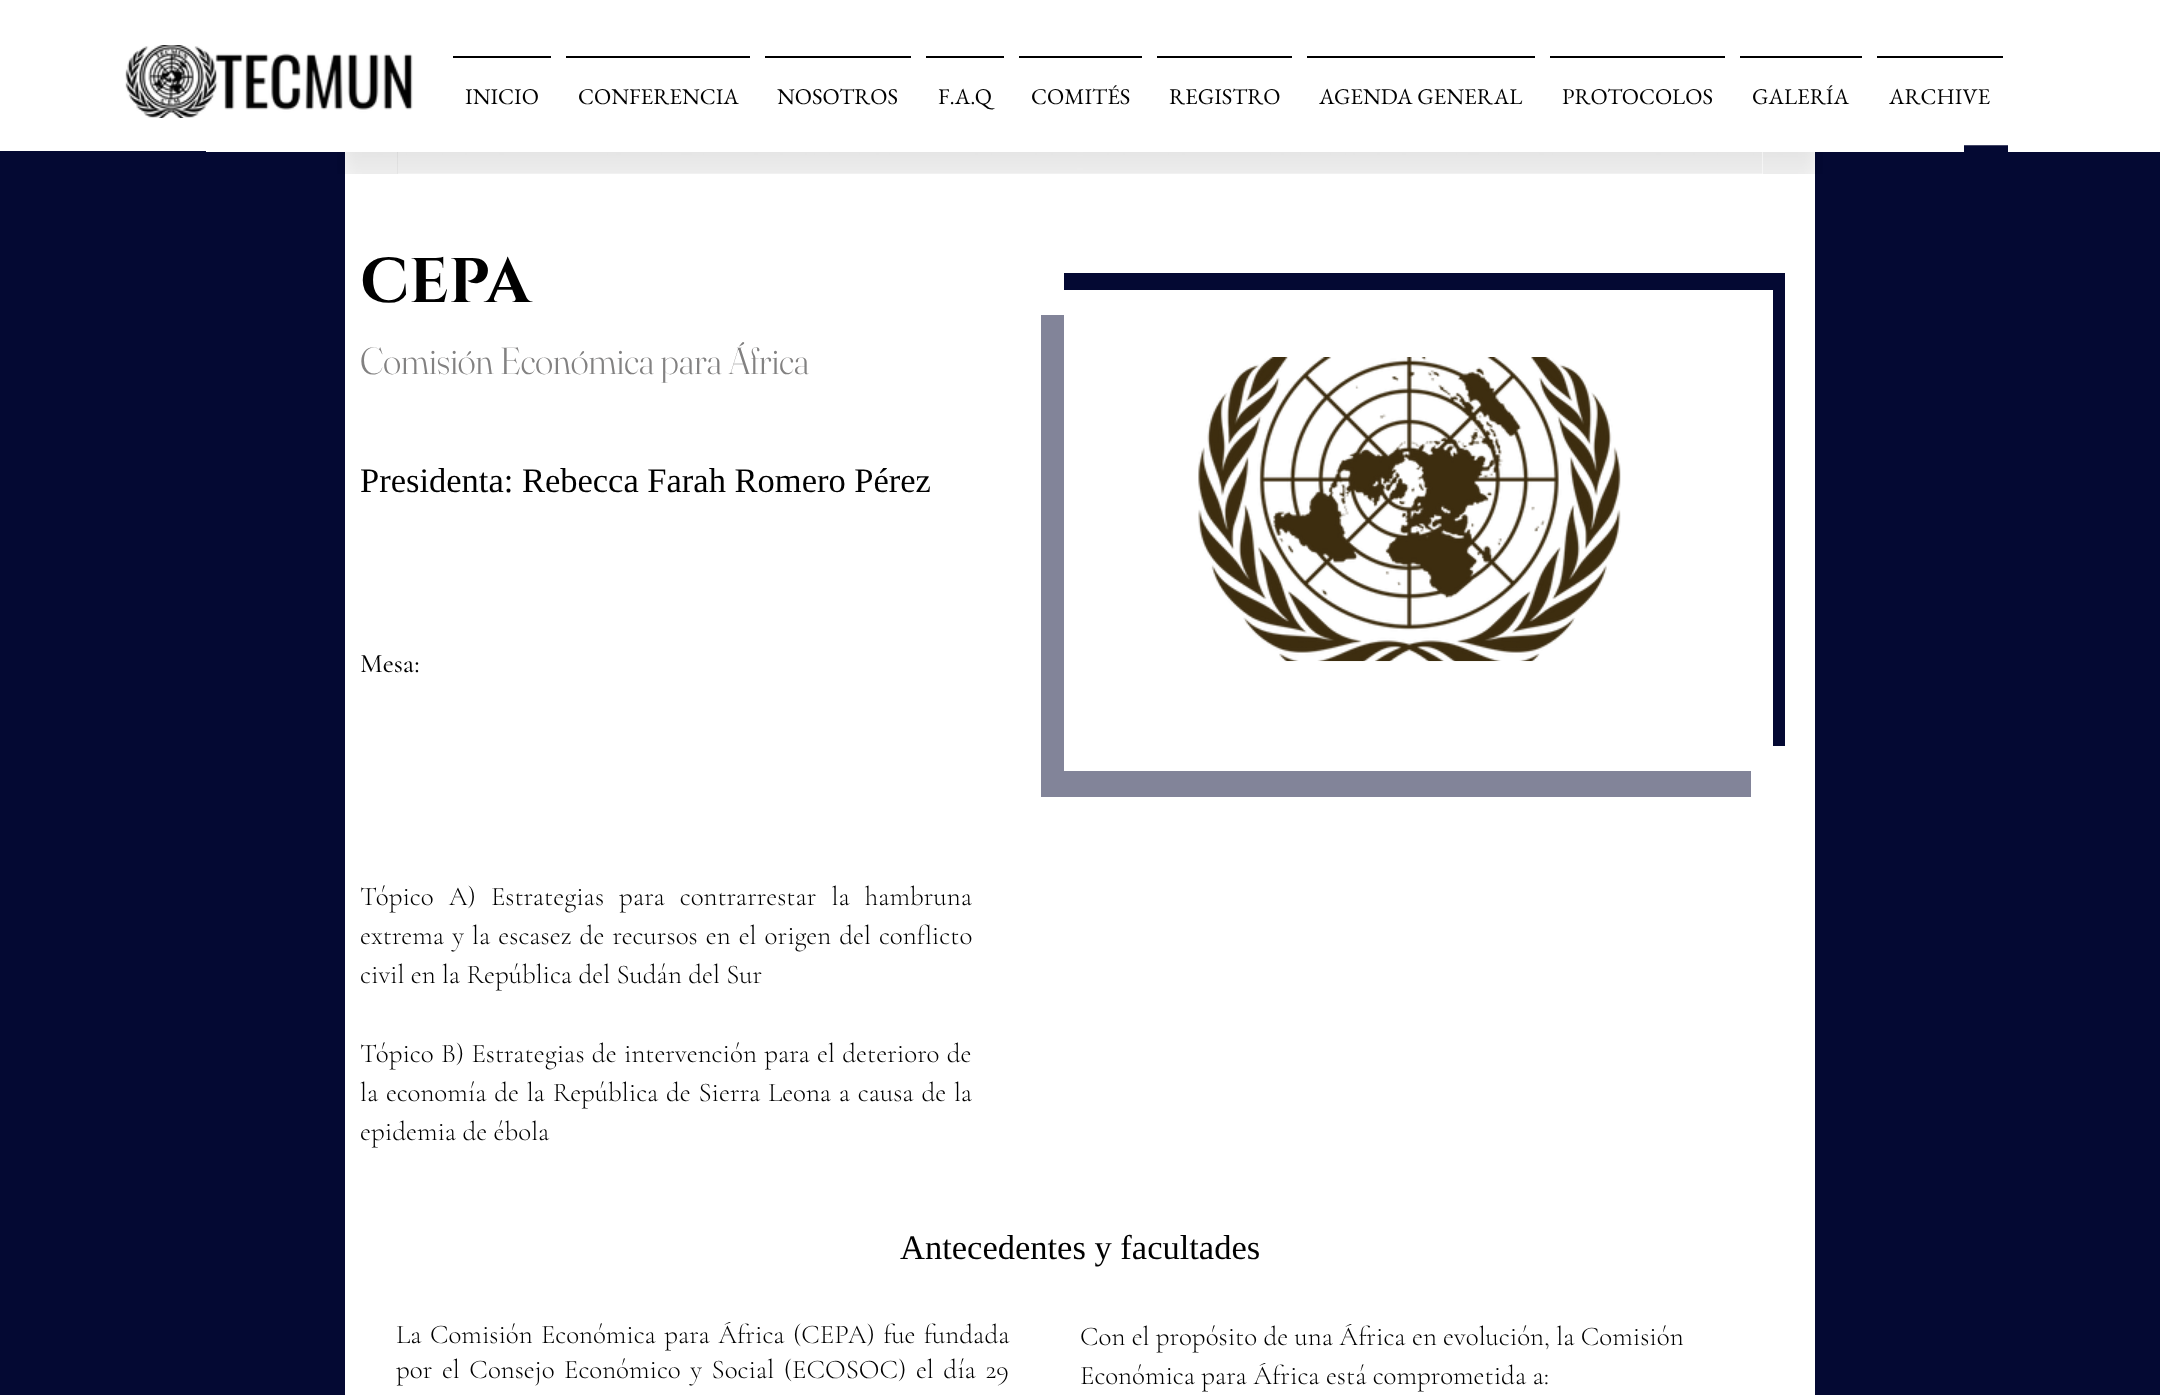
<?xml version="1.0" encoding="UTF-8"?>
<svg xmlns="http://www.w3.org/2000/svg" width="2160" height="1395">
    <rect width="100%" height="100%" fill="#040933"/>
    <rect x="0" y="0" width="72" height="151" fill="#FFFFFF"/>
    <rect x="72" y="0" width="134" height="151" fill="#FFFFFF"/>
    <rect x="206" y="0" width="139" height="152" fill="#FFFFFF"/>
    <rect x="1815" y="0" width="149" height="152" fill="#FFFFFF"/>
    <image x="1964" y="0" width="44" height="146" href="img_01.png"/>
    <rect x="2008" y="0" width="152" height="152" fill="#FFFFFF"/>
    <rect x="345" y="0" width="1470" height="1395" fill="#FFFFFF"/>
    <image x="125" y="45" width="288" height="73" href="img_02.png"/>
    <rect x="453" y="56" width="98" height="2" fill="#000000"/>
    <text x="465" y="104" font-family="EB Garamond" font-size="22.5" fill="#000000">INICIO</text>
    <rect x="566" y="56" width="184" height="2" fill="#000000"/>
    <text x="578" y="104" font-family="EB Garamond" font-size="22.5" fill="#000000">CONFERENCIA</text>
    <rect x="765" y="56" width="146" height="2" fill="#000000"/>
    <text x="777" y="104" font-family="EB Garamond" font-size="22.5" fill="#000000">NOSOTROS</text>
    <rect x="926" y="56" width="78" height="2" fill="#000000"/>
    <text x="938" y="104" font-family="EB Garamond" font-size="22.5" fill="#000000">F.A.Q</text>
    <rect x="1019" y="56" width="123" height="2" fill="#000000"/>
    <text x="1031" y="104" font-family="EB Garamond" font-size="22.5" fill="#000000">COMITÉS</text>
    <rect x="1157" y="56" width="135" height="2" fill="#000000"/>
    <text x="1169" y="104" font-family="EB Garamond" font-size="22.5" fill="#000000">REGISTRO</text>
    <rect x="1307" y="56" width="228" height="2" fill="#000000"/>
    <text x="1319" y="104" font-family="EB Garamond" font-size="22.5" fill="#000000">AGENDA GENERAL</text>
    <rect x="1550" y="56" width="175" height="2" fill="#000000"/>
    <text x="1562" y="104" font-family="EB Garamond" font-size="22.5" fill="#000000">PROTOCOLOS</text>
    <rect x="1740" y="56" width="122" height="2" fill="#000000"/>
    <text x="1752" y="104" font-family="EB Garamond" font-size="22.5" fill="#000000">GALERÍA</text>
    <rect x="1877" y="56" width="126" height="2" fill="#000000"/>
    <text x="1889" y="104" font-family="EB Garamond" font-size="22.5" fill="#000000">ARCHIVE</text>
    <image x="337" y="152" width="61" height="22" href="img_03.png"/>
    <image x="397" y="152" width="1366" height="22" href="img_04.png"/>
    <image x="1763" y="152" width="60" height="22" href="img_05.png"/>
    <rect x="1041" y="315" width="710" height="482" fill="#828499"/>
    <text x="360" y="302" font-family="Cinzel" font-size="63" font-weight="700" fill="#000000">CEPA</text>
    <rect x="1064" y="273" width="721" height="473" fill="#040933"/>
    <text x="360" y="374" font-family="Fraunces" font-size="37.5" font-weight="300" fill="#828181">Comisión Económica para África</text>
    <rect x="1064" y="290" width="709" height="481" fill="#FFFFFF"/>
    <image x="1198" y="357" width="423" height="305" href="img_06.png"/>
    <text x="360" y="492" font-family="Liberation Serif" font-size="34.5" fill="#000000">Presidenta: Rebecca Farah Romero Pérez</text>
    <text x="360" y="672" font-family="Cormorant Garamond" font-size="27" font-weight="500" fill="#000000">Mesa:</text>
    <text font-family="Cormorant Garamond" font-size="27" font-weight="300" fill="#000000">
        <tspan x="360" y="905" word-spacing="8.75">Tópico A) Estrategias para contrarrestar la hambruna</tspan>
        <tspan x="360" y="944" word-spacing="1.75">extrema y la escasez de recursos en el origen del conflicto</tspan>
        <tspan x="360" y="983">civil en la República del Sudán del Sur</tspan>
    </text>
    <text font-family="Cormorant Garamond" font-size="27" font-weight="300" fill="#000000">
        <tspan x="360" y="1062" word-spacing="1">Tópico B) Estrategias de intervención para el deterioro de</tspan>
        <tspan x="360" y="1101" word-spacing="1.4">la economía de la República de Sierra Leona a causa de la</tspan>
        <tspan x="360" y="1140">epidemia de ébola</tspan>
    </text>
    <text x="900" y="1259" font-family="Liberation Serif" font-size="34.5" fill="#000000">Antecedentes y facultades</text>
    <text font-family="Cormorant Garamond" font-size="27" font-weight="300" fill="#000000">
        <tspan x="396" y="1343" word-spacing="2">La Comisión Económica para África (CEPA) fue fundada</tspan>
        <tspan x="396" y="1378" word-spacing="3.25">por el Consejo Económico y Social (ECOSOC) el día 29</tspan>
    </text>
    <text font-family="Cormorant Garamond" font-size="27" font-weight="300" fill="#000000">
        <tspan x="1080" y="1345">Con el propósito de una África en evolución, la Comisión</tspan>
        <tspan x="1080" y="1384">Económica para África está comprometida a:</tspan>
    </text>
</svg>
